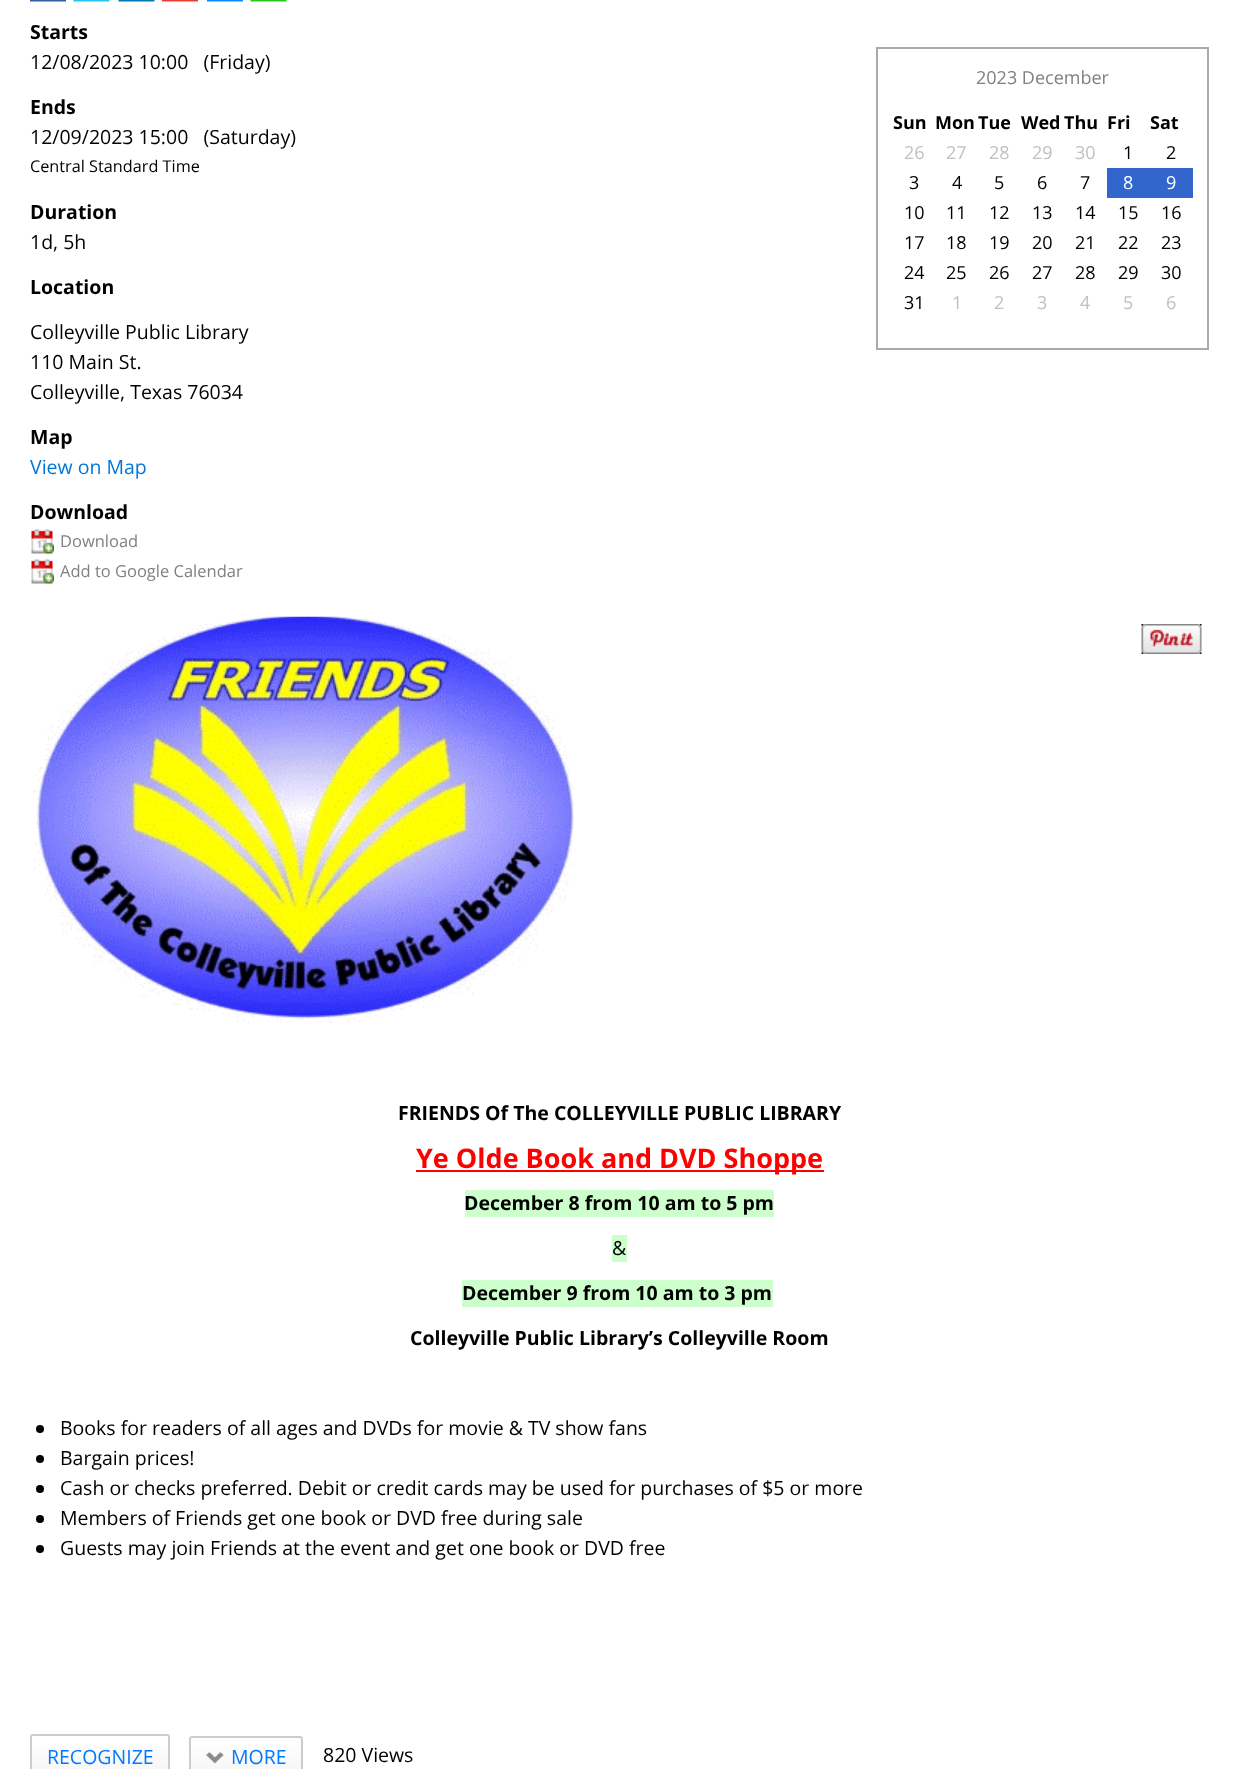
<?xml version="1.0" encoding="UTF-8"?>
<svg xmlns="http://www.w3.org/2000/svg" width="1238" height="1769">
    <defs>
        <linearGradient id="g1" gradientUnits="userSpaceOnUse" x1="100" y1="1736" x2="100" y2="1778"><stop offset="0" stop-color="#FFFFFF"/><stop offset="1" stop-color="#F5F5F5"/></linearGradient>
        <clipPath id="clip1"><rect x="189" y="1736" width="114" height="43" rx="3"/></clipPath>
        <linearGradient id="g2" gradientUnits="userSpaceOnUse" x1="246" y1="1737" x2="246" y2="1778"><stop offset="0" stop-color="#FFFFFF"/><stop offset="1" stop-color="#F5F5F5"/></linearGradient>
    </defs>
    <rect width="100%" height="100%" fill="#FFFFFF"/>
    <image x="30" y="0" width="36" height="2" href="img_01.png"/>
    <image x="73" y="0" width="37" height="2" href="img_02.png"/>
    <image x="118" y="0" width="37" height="2" href="img_03.png"/>
    <image x="162" y="0" width="36" height="2" href="img_04.png"/>
    <image x="207" y="0" width="36" height="2" href="img_05.png"/>
    <image x="250" y="0" width="37" height="2" href="img_06.png"/>
    <text x="30" y="39" font-family="Open Sans" font-size="19.5" font-weight="700" fill="#000000">Starts</text>
    <text x="30" y="69" font-family="Open Sans" font-size="19.5" fill="#000000" xml:space="preserve">12/08/2023 10:00   (Friday)</text>
    <text x="30" y="114" font-family="Open Sans" font-size="19.5" font-weight="700" fill="#000000">Ends</text>
    <text x="30" y="144" font-family="Open Sans" font-size="19.5" fill="#000000" xml:space="preserve">12/09/2023 15:00   (Saturday)</text>
    <text x="30" y="172" font-family="Open Sans" font-size="16.25" fill="#000000">Central Standard Time</text>
    <text x="30" y="219" font-family="Open Sans" font-size="19.5" font-weight="700" fill="#000000">Duration</text>
    <text x="30" y="249" font-family="Open Sans" font-size="19.5" fill="#000000">1d, 5h</text>
    <text x="30" y="294" font-family="Open Sans" font-size="19.5" font-weight="700" fill="#000000">Location</text>
    <text font-family="Open Sans" font-size="19.5" fill="#000000">
        <tspan x="30" y="339">Colleyville Public Library</tspan>
        <tspan x="30" y="369">110 Main St.</tspan>
        <tspan x="30" y="399">Colleyville, Texas 76034</tspan>
    </text>
    <text x="30" y="444" font-family="Open Sans" font-size="19.5" font-weight="700" fill="#000000">Map</text>
    <text x="30" y="474" font-family="Open Sans" font-size="19.5" fill="#0176D9">View on Map</text>
    <text x="30" y="519" font-family="Open Sans" font-size="19.5" font-weight="700" fill="#000000">Download</text>
    <image x="31" y="529" width="23" height="25" href="img_07.png"/>
    <text x="60" y="547" font-family="Open Sans" font-size="16.5" fill="#808080">Download</text>
    <image x="31" y="559" width="23" height="25" href="img_07.png"/>
    <text x="60" y="577" font-family="Open Sans" font-size="16.5" fill="#808080">Add to Google Calendar</text>
    <rect x="877" y="48" width="331" height="301" fill="none" stroke="#AAAAAA" stroke-width="2"/>
    <text x="976" y="84" font-family="Open Sans" font-size="18" fill="#808080">2023 December</text>
    <text x="893" y="129" font-family="Open Sans" font-size="18" font-weight="700" fill="#000000">Sun</text>
    <text x="935" y="129" font-family="Open Sans" font-size="18" font-weight="700" fill="#000000">Mon</text>
    <text x="978" y="129" font-family="Open Sans" font-size="18" font-weight="700" fill="#000000">Tue</text>
    <text x="1021" y="129" font-family="Open Sans" font-size="18" font-weight="700" fill="#000000">Wed</text>
    <text x="1064" y="129" font-family="Open Sans" font-size="18" font-weight="700" fill="#000000">Thu</text>
    <text x="1107" y="129" font-family="Open Sans" font-size="18" font-weight="700" fill="#000000">Fri</text>
    <text x="1150" y="129" font-family="Open Sans" font-size="18" font-weight="700" fill="#000000">Sat</text>
    <text x="904" y="159" font-family="Open Sans" font-size="18" fill="#C0C0C0">26</text>
    <text x="946" y="159" font-family="Open Sans" font-size="18" fill="#C0C0C0">27</text>
    <text x="989" y="159" font-family="Open Sans" font-size="18" fill="#C0C0C0">28</text>
    <text x="1032" y="159" font-family="Open Sans" font-size="18" fill="#C0C0C0">29</text>
    <text x="1075" y="159" font-family="Open Sans" font-size="18" fill="#C0C0C0">30</text>
    <text x="1123" y="159" font-family="Open Sans" font-size="18" fill="#000000">1</text>
    <text x="1166" y="159" font-family="Open Sans" font-size="18" fill="#000000">2</text>
    <text x="909" y="189" font-family="Open Sans" font-size="18" fill="#000000">3</text>
    <text x="952" y="189" font-family="Open Sans" font-size="18" fill="#000000">4</text>
    <text x="994" y="189" font-family="Open Sans" font-size="18" fill="#000000">5</text>
    <text x="1037" y="189" font-family="Open Sans" font-size="18" fill="#000000">6</text>
    <text x="1080" y="189" font-family="Open Sans" font-size="18" fill="#000000">7</text>
    <rect x="1107" y="168" width="86" height="30" fill="#3366CC"/>
    <text x="1123" y="189" font-family="Open Sans" font-size="18" fill="#FFFFFF">8</text>
    <text x="1166" y="189" font-family="Open Sans" font-size="18" fill="#FFFFFF">9</text>
    <text x="904" y="219" font-family="Open Sans" font-size="18" fill="#000000">10</text>
    <text x="946" y="219" font-family="Open Sans" font-size="18" fill="#000000">11</text>
    <text x="989" y="219" font-family="Open Sans" font-size="18" fill="#000000">12</text>
    <text x="1032" y="219" font-family="Open Sans" font-size="18" fill="#000000">13</text>
    <text x="1075" y="219" font-family="Open Sans" font-size="18" fill="#000000">14</text>
    <text x="1118" y="219" font-family="Open Sans" font-size="18" fill="#000000">15</text>
    <text x="1161" y="219" font-family="Open Sans" font-size="18" fill="#000000">16</text>
    <text x="904" y="249" font-family="Open Sans" font-size="18" fill="#000000">17</text>
    <text x="946" y="249" font-family="Open Sans" font-size="18" fill="#000000">18</text>
    <text x="989" y="249" font-family="Open Sans" font-size="18" fill="#000000">19</text>
    <text x="1032" y="249" font-family="Open Sans" font-size="18" fill="#000000">20</text>
    <text x="1075" y="249" font-family="Open Sans" font-size="18" fill="#000000">21</text>
    <text x="1118" y="249" font-family="Open Sans" font-size="18" fill="#000000">22</text>
    <text x="1161" y="249" font-family="Open Sans" font-size="18" fill="#000000">23</text>
    <text x="904" y="279" font-family="Open Sans" font-size="18" fill="#000000">24</text>
    <text x="946" y="279" font-family="Open Sans" font-size="18" fill="#000000">25</text>
    <text x="989" y="279" font-family="Open Sans" font-size="18" fill="#000000">26</text>
    <text x="1032" y="279" font-family="Open Sans" font-size="18" fill="#000000">27</text>
    <text x="1075" y="279" font-family="Open Sans" font-size="18" fill="#000000">28</text>
    <text x="1118" y="279" font-family="Open Sans" font-size="18" fill="#000000">29</text>
    <text x="1161" y="279" font-family="Open Sans" font-size="18" fill="#000000">30</text>
    <text x="904" y="309" font-family="Open Sans" font-size="18" fill="#000000">31</text>
    <text x="952" y="309" font-family="Open Sans" font-size="18" fill="#C0C0C0">1</text>
    <text x="994" y="309" font-family="Open Sans" font-size="18" fill="#C0C0C0">2</text>
    <text x="1037" y="309" font-family="Open Sans" font-size="18" fill="#C0C0C0">3</text>
    <text x="1080" y="309" font-family="Open Sans" font-size="18" fill="#C0C0C0">4</text>
    <text x="1123" y="309" font-family="Open Sans" font-size="18" fill="#C0C0C0">5</text>
    <text x="1166" y="309" font-family="Open Sans" font-size="18" fill="#C0C0C0">6</text>
    <image x="33" y="616" width="543" height="407" href="img_08.png"/>
    <image x="1141" y="624" width="61" height="30" href="img_09.png"/>
    <text x="398" y="1120" font-family="Open Sans" font-size="19.5" font-weight="700" fill="#000000">FRIENDS Of The COLLEYVILLE PUBLIC LIBRARY</text>
    <rect x="416" y="1170" width="408" height="2" fill="#FF0000"/>
    <text x="416" y="1168" font-family="Open Sans" font-size="27" font-weight="700" fill="#FF0000">Ye Olde Book and DVD Shoppe</text>
    <rect x="465" y="1190" width="309" height="27" fill="#CCFFCC"/>
    <text x="464" y="1210" font-family="Open Sans" font-size="19.5" font-weight="700" fill="#000000">December 8 from 10 am to 5 pm</text>
    <rect x="612" y="1235" width="15" height="27" fill="#CCFFCC"/>
    <text x="612" y="1255" font-family="Open Sans" font-size="19.5" fill="#000000">&amp;</text>
    <rect x="462" y="1280" width="311" height="27" fill="#CCFFCC"/>
    <text x="462" y="1300" font-family="Open Sans" font-size="19.5" font-weight="700" fill="#000000">December 9 from 10 am to 3 pm</text>
    <text x="410" y="1345" font-family="Open Sans" font-size="19.5" font-weight="700" fill="#000000">Colleyville Public Library’s Colleyville Room</text>
    <circle cx="40" cy="1429" r="4" fill="#000000"/>
    <text x="60" y="1435" font-family="Open Sans" font-size="19.5" fill="#000000">Books for readers of all ages and DVDs for movie &amp; TV show fans</text>
    <circle cx="40" cy="1459" r="4" fill="#000000"/>
    <text x="60" y="1465" font-family="Open Sans" font-size="19.5" fill="#000000">Bargain prices!</text>
    <circle cx="40" cy="1489" r="4" fill="#000000"/>
    <text x="60" y="1495" font-family="Open Sans" font-size="19.5" fill="#000000">Cash or checks preferred. Debit or credit cards may be used for purchases of $5 or more</text>
    <circle cx="40" cy="1519" r="4" fill="#000000"/>
    <text x="60" y="1525" font-family="Open Sans" font-size="19.5" fill="#000000">Members of Friends get one book or DVD free during sale</text>
    <circle cx="40" cy="1549" r="4" fill="#000000"/>
    <text x="60" y="1555" font-family="Open Sans" font-size="19.5" fill="#000000">Guests may join Friends at the event and get one book or DVD free</text>
    <rect x="30" y="1747" width="140" height="22" fill="url(#g1)"/>
    <rect x="31" y="1735" width="138" height="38" rx="2" fill="none" stroke="#CCCCCC" stroke-width="2"/>
    <text x="47" y="1764" font-family="Open Sans" font-size="19.5" fill="#007AFF">RECOGNIZE</text>
    <g clip-path="url(#clip1)">
        <rect x="189" y="1737" width="114" height="32" fill="url(#g2)"/>
    </g>
    <rect x="190" y="1737" width="112" height="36" rx="2" fill="none" stroke="#CCCCCC" stroke-width="2"/>
    <image x="206" y="1752" width="18" height="12" href="img_10.png"/>
    <text x="231" y="1764" font-family="Open Sans" font-size="19.5" fill="#007AFF">MORE</text>
    <text x="323" y="1762" font-family="Open Sans" font-size="19.5" fill="#000000">820 Views</text>
</svg>
